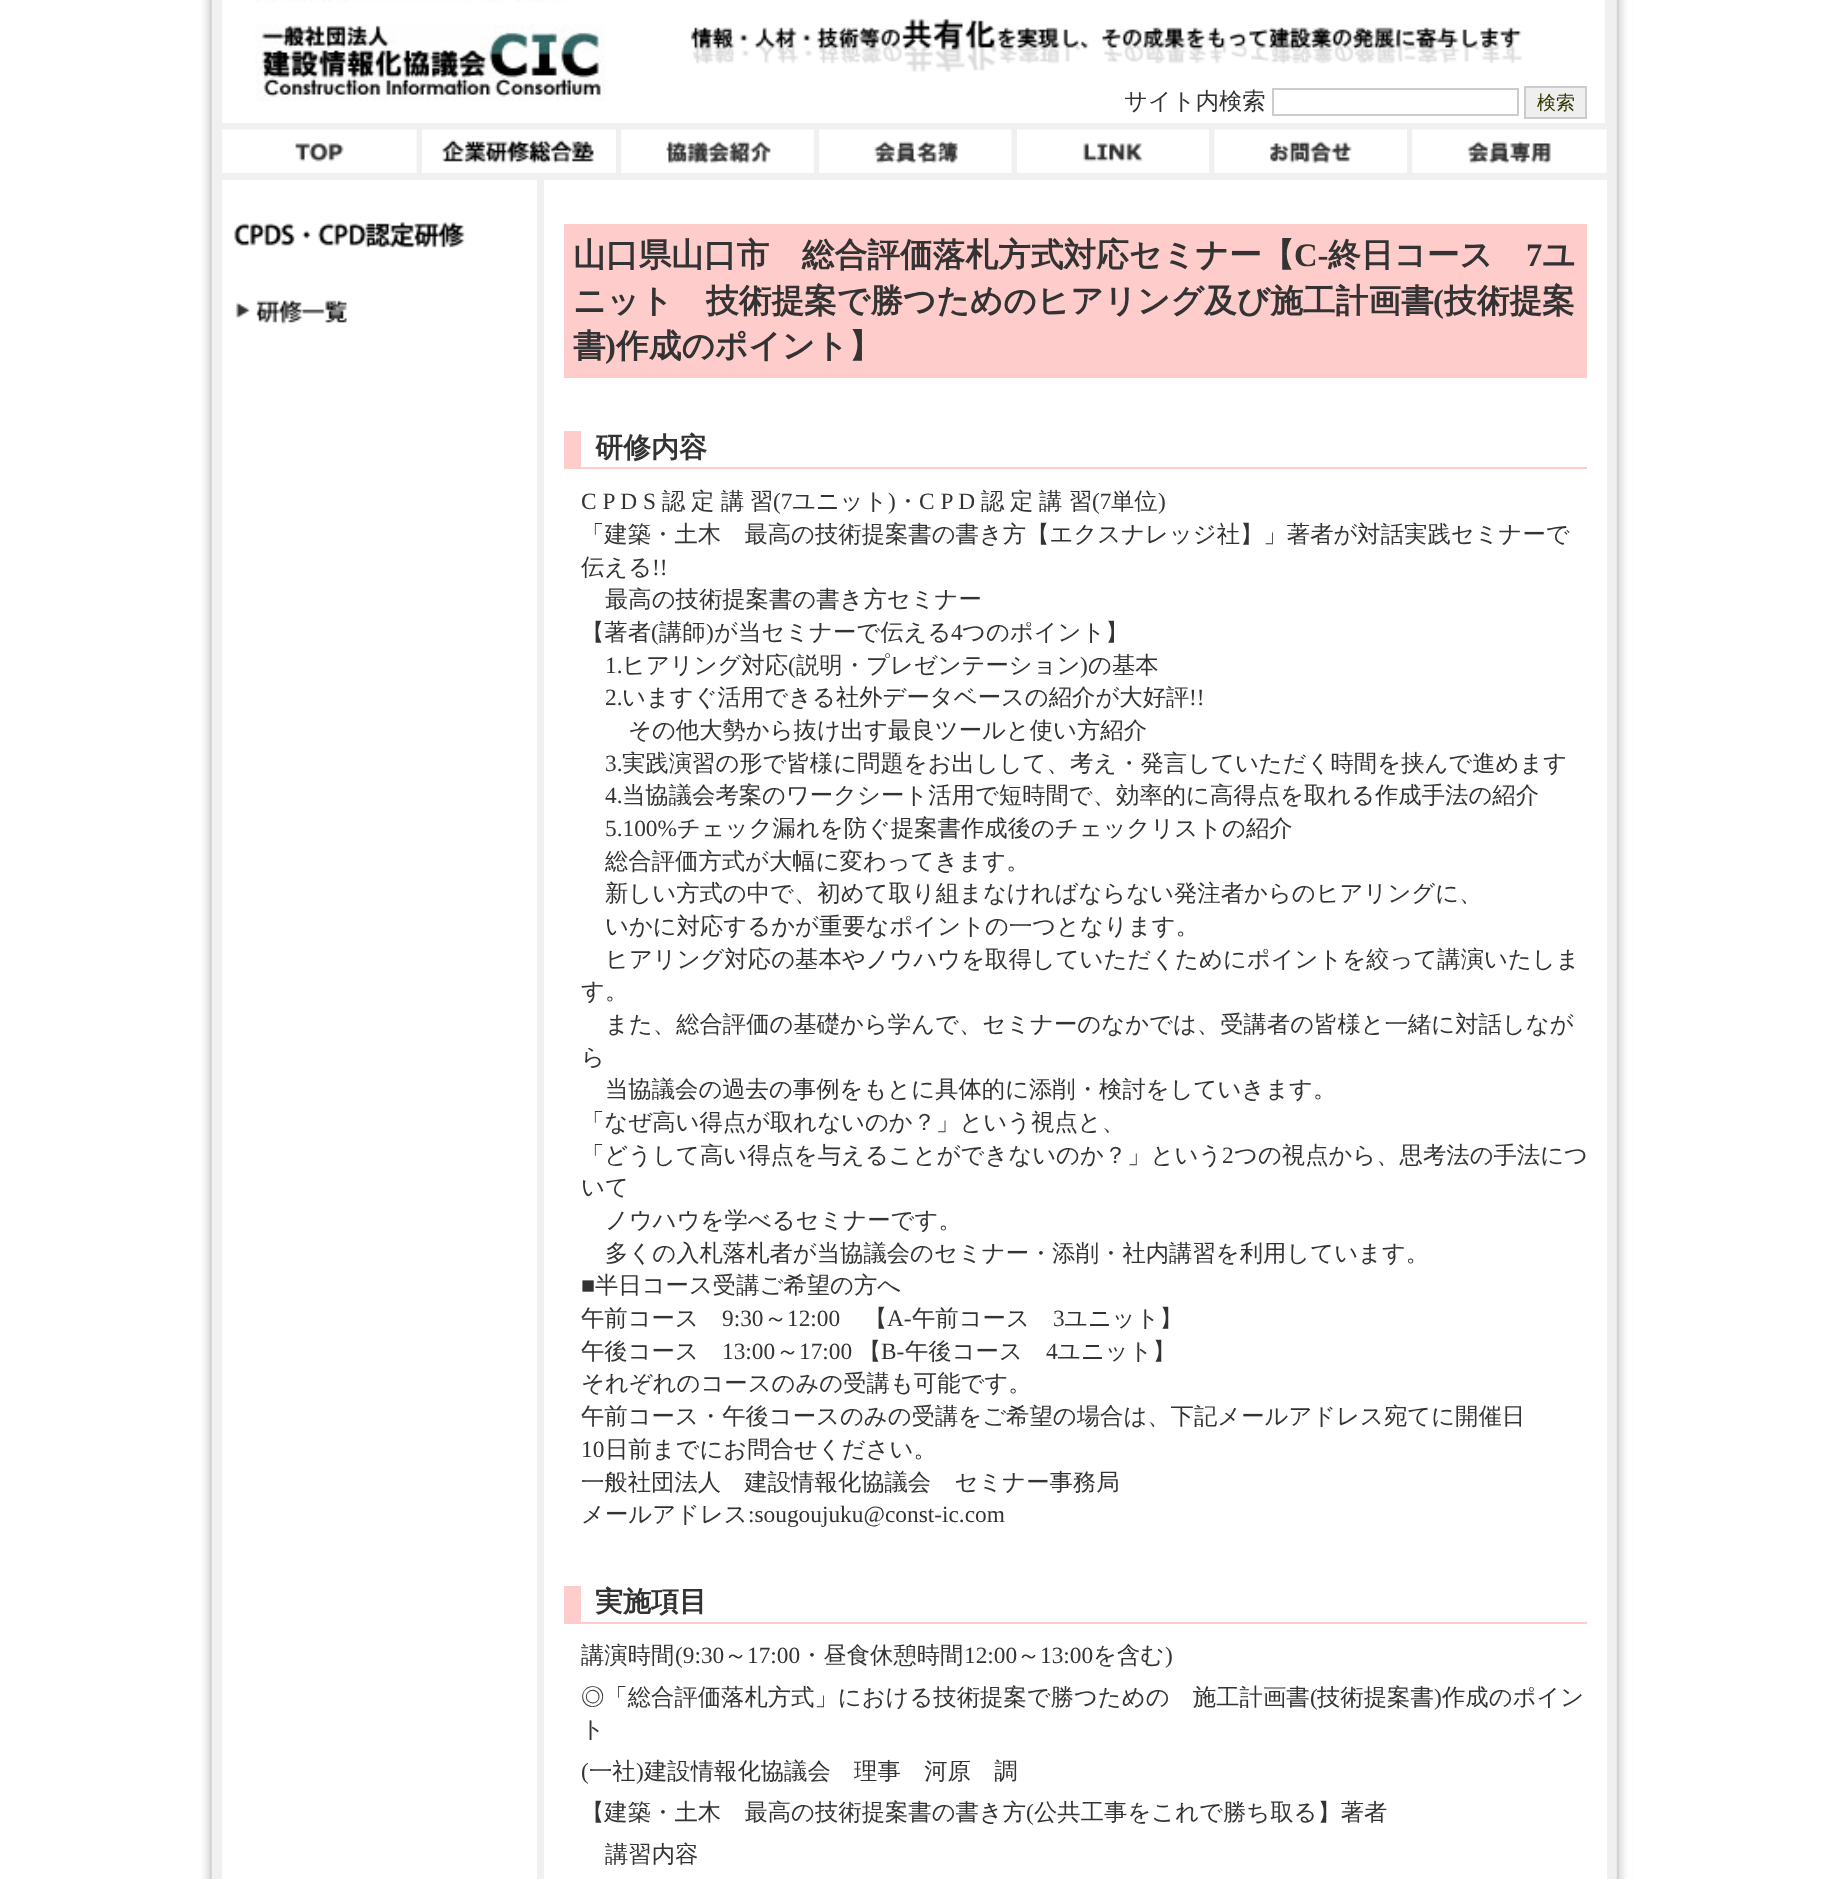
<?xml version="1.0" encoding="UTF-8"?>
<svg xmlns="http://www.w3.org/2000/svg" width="1828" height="1879">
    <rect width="100%" height="100%" fill="#FFFFFF"/>
    <rect x="212" y="0" width="1421" height="1879" fill="#F0F0F0"/>
    <image x="196" y="0" width="16" height="1879" href="img_01.png"/>
    <rect x="222" y="0" width="1383" height="123" fill="#FFFFFF"/>
    <image x="251" y="0" width="355" height="101" href="img_02.png"/>
    <image x="690" y="18" width="833" height="54" href="img_03.png"/>
    <text x="1124" y="109" font-family="WenQuanYi Zen Hei" font-size="23.35" font-weight="500" fill="#333333">サイト内検索</text>
    <rect x="1273" y="89" width="245" height="26" fill="none" stroke="#CCCCCC" stroke-width="2"/>
    <rect x="1525" y="87" width="61" height="31" fill="#EFEFEF" stroke="#CCCCCC" stroke-width="2"/>
    <text x="1537" y="109" font-family="WenQuanYi Zen Hei" font-size="19" font-weight="500" fill="#333300">検索</text>
    <image x="222" y="129" width="195" height="44" href="img_04.png"/>
    <image x="422" y="129" width="194" height="44" href="img_05.png"/>
    <image x="621" y="129" width="193" height="44" href="img_06.png"/>
    <image x="819" y="129" width="193" height="44" href="img_07.png"/>
    <image x="1017" y="129" width="192" height="44" href="img_08.png"/>
    <image x="1214" y="129" width="193" height="44" href="img_09.png"/>
    <image x="1412" y="129" width="195" height="44" href="img_10.png"/>
    <rect x="222" y="180" width="315" height="1699" fill="#FFFFFF"/>
    <image x="234" y="221" width="231" height="27" href="img_11.png"/>
    <image x="235" y="299" width="112" height="26" href="img_12.png"/>
    <rect x="544" y="180" width="1063" height="1699" fill="#FFFFFF"/>
    <rect x="564" y="224" width="1023" height="154" fill="#FFCCCC"/>
    <text x="573" y="266" font-family="WenQuanYi Zen Hei" font-size="32.7" font-weight="700" fill="#333333">山口県山口市　総合評価落札方式対応セミナー【</text>
    <text x="1294" y="266" font-family="Liberation Serif" font-size="32.7" font-weight="700" fill="#333333">C-</text>
    <text x="1328" y="266" font-family="WenQuanYi Zen Hei" font-size="32.7" font-weight="700" fill="#333333">終日コース</text>
    <text x="1526" y="266" font-family="Liberation Serif" font-size="32.7" font-weight="700" fill="#333333">7</text>
    <text x="1542" y="266" font-family="WenQuanYi Zen Hei" font-size="32.7" font-weight="700" fill="#333333">ユ</text>
    <text x="573" y="312" font-family="WenQuanYi Zen Hei" font-size="32.7" font-weight="700" fill="#333333">ニット　技術提案で勝つためのヒアリング及び施工計画書</text>
    <text x="1433" y="312" font-family="Liberation Serif" font-size="32.7" font-weight="700" fill="#333333">(</text>
    <text x="1444" y="312" font-family="WenQuanYi Zen Hei" font-size="32.7" font-weight="700" fill="#333333">技術提案</text>
    <text x="573" y="357" font-family="WenQuanYi Zen Hei" font-size="32.7" font-weight="700" fill="#333333">書</text>
    <text x="605" y="357" font-family="Liberation Serif" font-size="32.7" font-weight="700" fill="#333333">)</text>
    <text x="616" y="357" font-family="WenQuanYi Zen Hei" font-size="32.7" font-weight="700" fill="#333333">作成のポイント】</text>
    <rect x="581" y="467" width="1006" height="2" fill="#FFCCCC"/>
    <rect x="564" y="431" width="17" height="38" fill="#FFCCCC"/>
    <text x="595" y="457" font-family="WenQuanYi Zen Hei" font-size="28" font-weight="700" fill="#333333">研修内容</text>
    <text x="581" y="509" font-family="Liberation Serif" font-size="23.35" fill="#333333">C P D S</text>
    <text x="662" y="509" font-family="WenQuanYi Zen Hei" font-size="23.35" font-weight="500" fill="#333333">認</text>
    <text x="691" y="509" font-family="WenQuanYi Zen Hei" font-size="23.35" font-weight="500" fill="#333333">定</text>
    <text x="721" y="509" font-family="WenQuanYi Zen Hei" font-size="23.35" font-weight="500" fill="#333333">講</text>
    <text x="750" y="509" font-family="WenQuanYi Zen Hei" font-size="23.35" font-weight="500" fill="#333333">習</text>
    <text x="773" y="509" font-family="Liberation Serif" font-size="23.35" fill="#333333">(7</text>
    <text x="792" y="509" font-family="WenQuanYi Zen Hei" font-size="23.35" font-weight="500" fill="#333333">ユニット</text>
    <text x="888" y="509" font-family="Liberation Serif" font-size="23.35" fill="#333333">)</text>
    <text x="896" y="509" font-family="WenQuanYi Zen Hei" font-size="23.35" font-weight="500" fill="#333333">・</text>
    <text x="919" y="509" font-family="Liberation Serif" font-size="23.35" fill="#333333">C P D</text>
    <text x="981" y="509" font-family="WenQuanYi Zen Hei" font-size="23.35" font-weight="500" fill="#333333">認</text>
    <text x="1010" y="509" font-family="WenQuanYi Zen Hei" font-size="23.35" font-weight="500" fill="#333333">定</text>
    <text x="1039" y="509" font-family="WenQuanYi Zen Hei" font-size="23.35" font-weight="500" fill="#333333">講</text>
    <text x="1069" y="509" font-family="WenQuanYi Zen Hei" font-size="23.35" font-weight="500" fill="#333333">習</text>
    <text x="1092" y="509" font-family="Liberation Serif" font-size="23.35" fill="#333333">(7</text>
    <text x="1111" y="509" font-family="WenQuanYi Zen Hei" font-size="23.35" font-weight="500" fill="#333333">単位</text>
    <text x="1158" y="509" font-family="Liberation Serif" font-size="23.35" fill="#333333">)</text>
    <text font-family="WenQuanYi Zen Hei" font-size="23.35" font-weight="500" fill="#333333">
        <tspan x="581" y="542">「建築・土木　最高の技術提案書の書き方【エクスナレッジ社】」著者が対話実践セミナーで</tspan>
        <tspan x="581" y="575">伝える</tspan>
    </text>
    <text x="652" y="575" font-family="Liberation Serif" font-size="23.35" fill="#333333">!!</text>
    <text x="605" y="607" font-family="WenQuanYi Zen Hei" font-size="23.35" font-weight="500" fill="#333333">最高の技術提案書の書き方セミナー</text>
    <text x="581" y="640" font-family="WenQuanYi Zen Hei" font-size="23.35" font-weight="500" fill="#333333">【著者</text>
    <text x="651" y="640" font-family="Liberation Serif" font-size="23.35" fill="#333333">(</text>
    <text x="659" y="640" font-family="WenQuanYi Zen Hei" font-size="23.35" font-weight="500" fill="#333333">講師</text>
    <text x="706" y="640" font-family="Liberation Serif" font-size="23.35" fill="#333333">)</text>
    <text x="714" y="640" font-family="WenQuanYi Zen Hei" font-size="23.35" font-weight="500" fill="#333333">が当セミナーで伝える</text>
    <text x="951" y="640" font-family="Liberation Serif" font-size="23.35" fill="#333333">4</text>
    <text x="962" y="640" font-family="WenQuanYi Zen Hei" font-size="23.35" font-weight="500" fill="#333333">つのポイント】</text>
    <text x="605" y="673" font-family="Liberation Serif" font-size="23.35" fill="#333333">1.</text>
    <text x="622" y="673" font-family="WenQuanYi Zen Hei" font-size="23.35" font-weight="500" fill="#333333">ヒアリング対応</text>
    <text x="788" y="673" font-family="Liberation Serif" font-size="23.35" fill="#333333">(</text>
    <text x="796" y="673" font-family="WenQuanYi Zen Hei" font-size="23.35" font-weight="500" fill="#333333">説明・プレゼンテーション</text>
    <text x="1080" y="673" font-family="Liberation Serif" font-size="23.35" fill="#333333">)</text>
    <text x="1088" y="673" font-family="WenQuanYi Zen Hei" font-size="23.35" font-weight="500" fill="#333333">の基本</text>
    <text x="605" y="705" font-family="Liberation Serif" font-size="23.35" fill="#333333">2.</text>
    <text x="622" y="705" font-family="WenQuanYi Zen Hei" font-size="23.35" font-weight="500" fill="#333333">いますぐ活用できる社外データベースの紹介が大好評</text>
    <text x="1189" y="705" font-family="Liberation Serif" font-size="23.35" fill="#333333">!!</text>
    <text x="628" y="738" font-family="WenQuanYi Zen Hei" font-size="23.35" font-weight="500" fill="#333333">その他大勢から抜け出す最良ツールと使い方紹介</text>
    <text x="605" y="771" font-family="Liberation Serif" font-size="23.35" fill="#333333">3.</text>
    <text x="622" y="771" font-family="WenQuanYi Zen Hei" font-size="23.35" font-weight="500" fill="#333333">実践演習の形で皆様に問題をお出しして、考え・発言していただく時間を挟んで進めます</text>
    <text x="605" y="803" font-family="Liberation Serif" font-size="23.35" fill="#333333">4.</text>
    <text x="622" y="803" font-family="WenQuanYi Zen Hei" font-size="23.35" font-weight="500" fill="#333333">当協議会考案のワークシート活用で短時間で、効率的に高得点を取れる作成手法の紹介</text>
    <text x="605" y="836" font-family="Liberation Serif" font-size="23.35" fill="#333333">5.100%</text>
    <text x="677" y="836" font-family="WenQuanYi Zen Hei" font-size="23.35" font-weight="500" fill="#333333">チェック漏れを防ぐ提案書作成後のチェックリストの紹介</text>
    <text font-family="WenQuanYi Zen Hei" font-size="23.35" font-weight="500" fill="#333333">
        <tspan x="605" y="869">総合評価方式が大幅に変わってきます。</tspan>
        <tspan x="605" y="901">新しい方式の中で、初めて取り組まなければならない発注者からのヒアリングに、</tspan>
        <tspan x="605" y="934">いかに対応するかが重要なポイントの一つとなります。</tspan>
        <tspan x="605" y="967">ヒアリング対応の基本やノウハウを取得していただくためにポイントを絞って講演いたしま</tspan>
    </text>
    <text x="581" y="999" font-family="WenQuanYi Zen Hei" font-size="23.35" font-weight="500" fill="#333333">す。</text>
    <text x="605" y="1032" font-family="WenQuanYi Zen Hei" font-size="23.35" font-weight="500" fill="#333333">また、総合評価の基礎から学んで、セミナーのなかでは、受講者の皆様と一緒に対話しなが</text>
    <text x="581" y="1065" font-family="WenQuanYi Zen Hei" font-size="23.35" font-weight="500" fill="#333333">ら</text>
    <text x="605" y="1097" font-family="WenQuanYi Zen Hei" font-size="23.35" font-weight="500" fill="#333333">当協議会の過去の事例をもとに具体的に添削・検討をしていきます。</text>
    <text font-family="WenQuanYi Zen Hei" font-size="23.35" font-weight="500" fill="#333333">
        <tspan x="581" y="1130">「なぜ高い得点が取れないのか？」という視点と、</tspan>
        <tspan x="581" y="1163">「どうして高い得点を与えることができないのか？」という</tspan>
    </text>
    <text x="1222" y="1163" font-family="Liberation Serif" font-size="23.35" fill="#333333">2</text>
    <text x="1234" y="1163" font-family="WenQuanYi Zen Hei" font-size="23.35" font-weight="500" fill="#333333">つの視点から、思考法の手法につ</text>
    <text x="581" y="1195" font-family="WenQuanYi Zen Hei" font-size="23.35" font-weight="500" fill="#333333">いて</text>
    <text font-family="WenQuanYi Zen Hei" font-size="23.35" font-weight="500" fill="#333333">
        <tspan x="605" y="1228">ノウハウを学べるセミナーです。</tspan>
        <tspan x="605" y="1261">多くの入札落札者が当協議会のセミナー・添削・社内講習を利用しています。</tspan>
    </text>
    <text x="581" y="1293" font-family="Liberation Serif" font-size="23.35" fill="#333333">■</text>
    <text x="595" y="1293" font-family="WenQuanYi Zen Hei" font-size="23.35" font-weight="500" fill="#333333">半日コース受講ご希望の方へ</text>
    <text x="581" y="1326" font-family="WenQuanYi Zen Hei" font-size="23.35" font-weight="500" fill="#333333">午前コース</text>
    <text x="722" y="1326" font-family="Liberation Serif" font-size="23.35" fill="#333333">9:30</text>
    <text x="764" y="1326" font-family="WenQuanYi Zen Hei" font-size="23.35" font-weight="500" fill="#333333">～</text>
    <text x="787" y="1326" font-family="Liberation Serif" font-size="23.35" fill="#333333">12:00</text>
    <text x="864" y="1326" font-family="WenQuanYi Zen Hei" font-size="23.35" font-weight="500" fill="#333333">【</text>
    <text x="887" y="1326" font-family="Liberation Serif" font-size="23.35" fill="#333333">A-</text>
    <text x="912" y="1326" font-family="WenQuanYi Zen Hei" font-size="23.35" font-weight="500" fill="#333333">午前コース</text>
    <text x="1053" y="1326" font-family="Liberation Serif" font-size="23.35" fill="#333333">3</text>
    <text x="1064" y="1326" font-family="WenQuanYi Zen Hei" font-size="23.35" font-weight="500" fill="#333333">ユニット】</text>
    <text x="581" y="1359" font-family="WenQuanYi Zen Hei" font-size="23.35" font-weight="500" fill="#333333">午後コース</text>
    <text x="722" y="1359" font-family="Liberation Serif" font-size="23.35" fill="#333333">13:00</text>
    <text x="776" y="1359" font-family="WenQuanYi Zen Hei" font-size="23.35" font-weight="500" fill="#333333">～</text>
    <text x="799" y="1359" font-family="Liberation Serif" font-size="23.35" fill="#333333">17:00</text>
    <text x="858" y="1359" font-family="WenQuanYi Zen Hei" font-size="23.35" font-weight="500" fill="#333333">【</text>
    <text x="881" y="1359" font-family="Liberation Serif" font-size="23.35" fill="#333333">B-</text>
    <text x="905" y="1359" font-family="WenQuanYi Zen Hei" font-size="23.35" font-weight="500" fill="#333333">午後コース</text>
    <text x="1046" y="1359" font-family="Liberation Serif" font-size="23.35" fill="#333333">4</text>
    <text x="1057" y="1359" font-family="WenQuanYi Zen Hei" font-size="23.35" font-weight="500" fill="#333333">ユニット】</text>
    <text font-family="WenQuanYi Zen Hei" font-size="23.35" font-weight="500" fill="#333333">
        <tspan x="581" y="1391">それぞれのコースのみの受講も可能です。</tspan>
        <tspan x="581" y="1424">午前コース・午後コースのみの受講をご希望の場合は、下記メールアドレス宛てに開催日</tspan>
    </text>
    <text x="581" y="1457" font-family="Liberation Serif" font-size="23.35" fill="#333333">10</text>
    <text x="605" y="1457" font-family="WenQuanYi Zen Hei" font-size="23.35" font-weight="500" fill="#333333">日前までにお問合せください。</text>
    <text font-family="WenQuanYi Zen Hei" font-size="23.35" font-weight="500" fill="#333333">
        <tspan x="581" y="1490">一般社団法人　建設情報化協議会　セミナー事務局</tspan>
        <tspan x="581" y="1522">メールアドレス</tspan>
    </text>
    <text x="748" y="1522" font-family="Liberation Serif" font-size="23.35" fill="#333333">:sougoujuku@const-ic.com</text>
    <rect x="581" y="1622" width="1006" height="2" fill="#FFCCCC"/>
    <rect x="564" y="1586" width="17" height="38" fill="#FFCCCC"/>
    <text x="595" y="1611" font-family="WenQuanYi Zen Hei" font-size="28" font-weight="700" fill="#333333">実施項目</text>
    <text x="581" y="1663" font-family="WenQuanYi Zen Hei" font-size="23.35" font-weight="500" fill="#333333">講演時間</text>
    <text x="675" y="1663" font-family="Liberation Serif" font-size="23.35" fill="#333333">(9:30</text>
    <text x="724" y="1663" font-family="WenQuanYi Zen Hei" font-size="23.35" font-weight="500" fill="#333333">～</text>
    <text x="747" y="1663" font-family="Liberation Serif" font-size="23.35" fill="#333333">17:00</text>
    <text x="800" y="1663" font-family="WenQuanYi Zen Hei" font-size="23.35" font-weight="500" fill="#333333">・昼食休憩時間</text>
    <text x="964" y="1663" font-family="Liberation Serif" font-size="23.35" fill="#333333">12:00</text>
    <text x="1017" y="1663" font-family="WenQuanYi Zen Hei" font-size="23.35" font-weight="500" fill="#333333">～</text>
    <text x="1040" y="1663" font-family="Liberation Serif" font-size="23.35" fill="#333333">13:00</text>
    <text x="1093" y="1663" font-family="WenQuanYi Zen Hei" font-size="23.35" font-weight="500" fill="#333333">を含む</text>
    <text x="1165" y="1663" font-family="Liberation Serif" font-size="23.35" fill="#333333">)</text>
    <text x="581" y="1705" font-family="WenQuanYi Zen Hei" font-size="23.35" font-weight="500" fill="#333333">◎「総合評価落札方式」における技術提案で勝つための　施工計画書</text>
    <text x="1310" y="1705" font-family="Liberation Serif" font-size="23.35" fill="#333333">(</text>
    <text x="1317" y="1705" font-family="WenQuanYi Zen Hei" font-size="23.35" font-weight="500" fill="#333333">技術提案書</text>
    <text x="1434" y="1705" font-family="Liberation Serif" font-size="23.35" fill="#333333">)</text>
    <text x="1442" y="1705" font-family="WenQuanYi Zen Hei" font-size="23.35" font-weight="500" fill="#333333">作成のポイン</text>
    <text x="581" y="1737" font-family="WenQuanYi Zen Hei" font-size="23.35" font-weight="500" fill="#333333">ト</text>
    <text x="581" y="1779" font-family="Liberation Serif" font-size="23.35" fill="#333333">(</text>
    <text x="589" y="1779" font-family="WenQuanYi Zen Hei" font-size="23.35" font-weight="500" fill="#333333">一社</text>
    <text x="636" y="1779" font-family="Liberation Serif" font-size="23.35" fill="#333333">)</text>
    <text x="644" y="1779" font-family="WenQuanYi Zen Hei" font-size="23.35" font-weight="500" fill="#333333">建設情報化協議会　理事　河原　調</text>
    <text x="581" y="1820" font-family="WenQuanYi Zen Hei" font-size="23.35" font-weight="500" fill="#333333">【建築・土木　最高の技術提案書の書き方</text>
    <text x="1026" y="1820" font-family="Liberation Serif" font-size="23.35" fill="#333333">(</text>
    <text x="1034" y="1820" font-family="WenQuanYi Zen Hei" font-size="23.35" font-weight="500" fill="#333333">公共工事をこれで勝ち取る】著者</text>
    <text x="605" y="1862" font-family="WenQuanYi Zen Hei" font-size="23.35" font-weight="500" fill="#333333">講習内容</text>
    <image x="1616" y="0" width="17" height="1879" href="img_13.png"/>
</svg>
